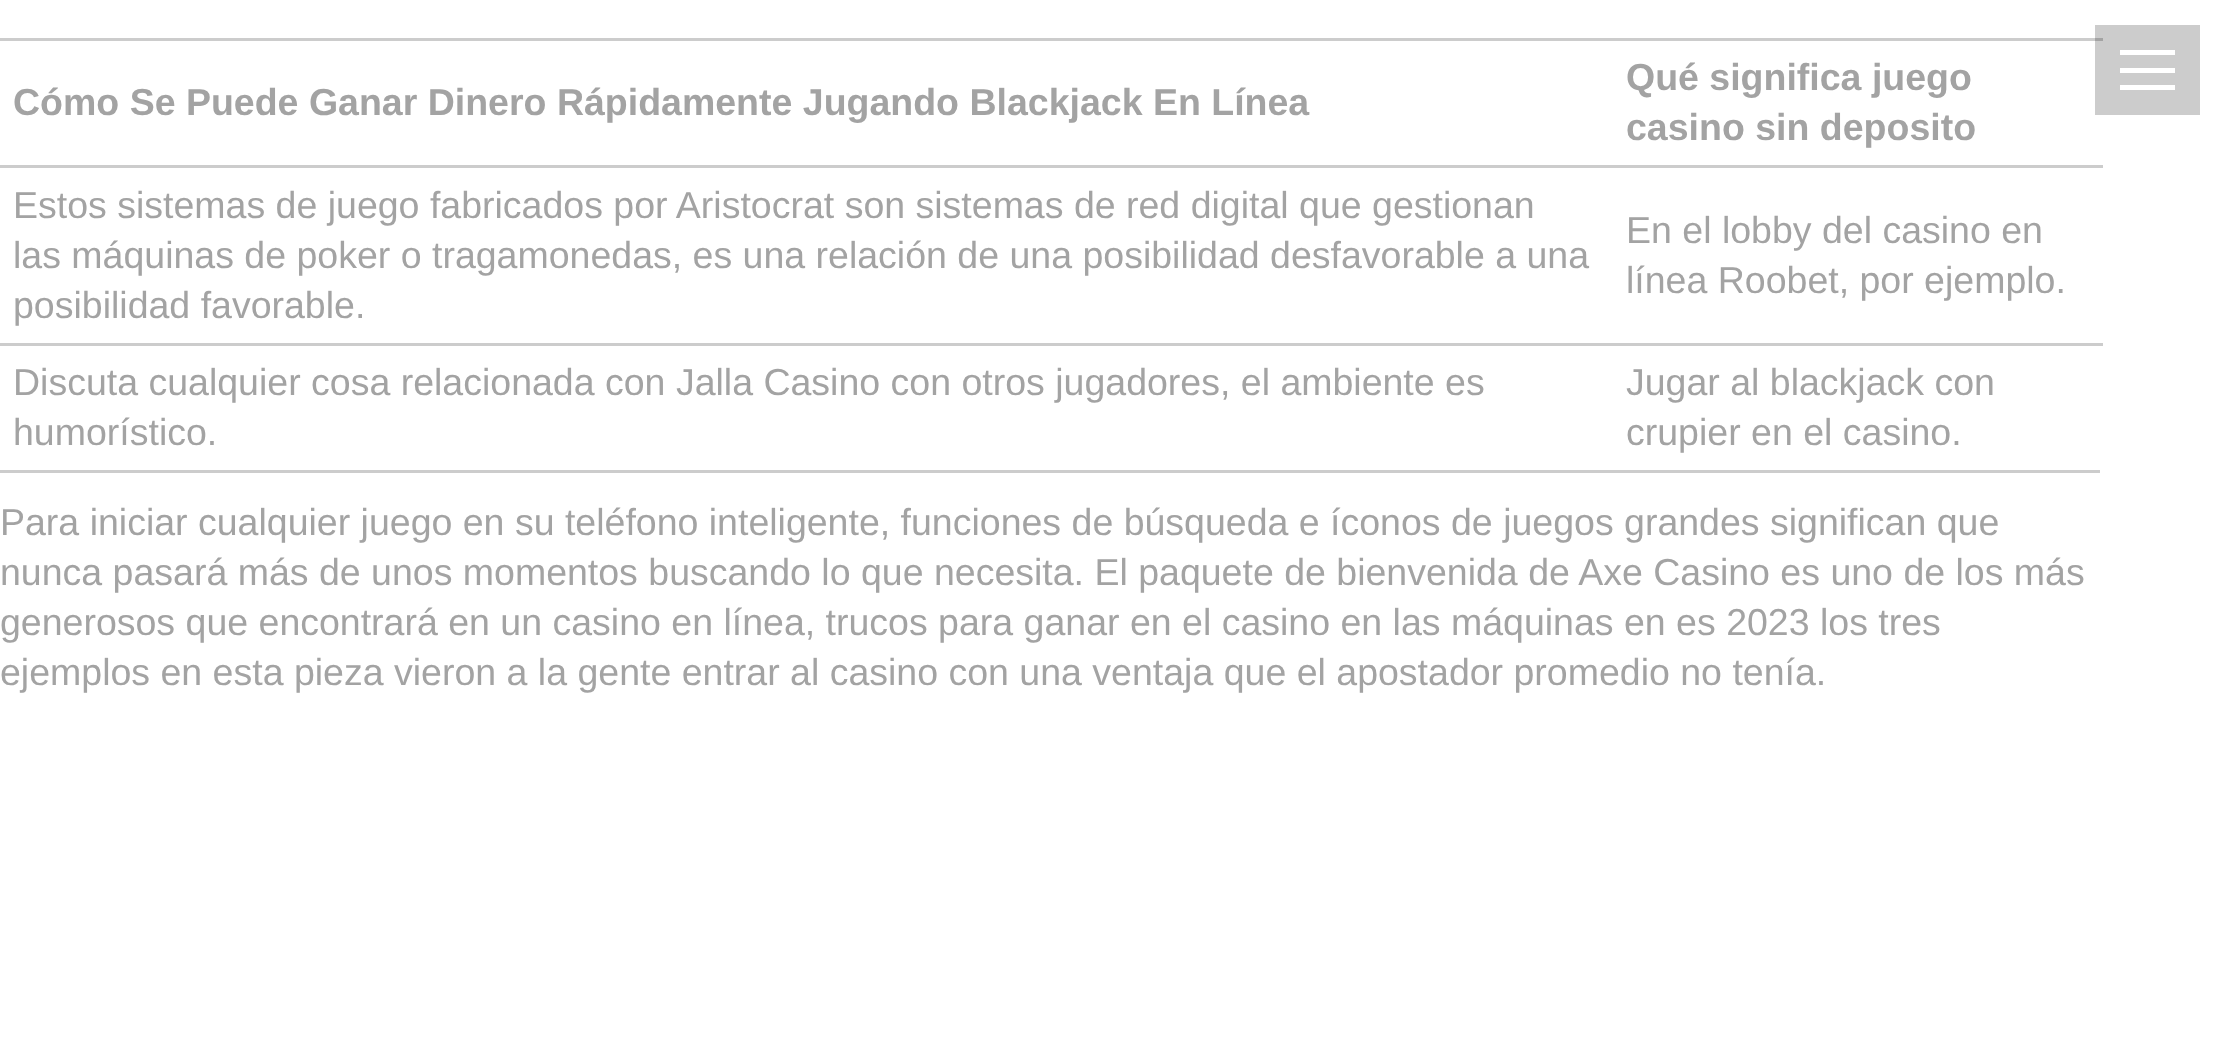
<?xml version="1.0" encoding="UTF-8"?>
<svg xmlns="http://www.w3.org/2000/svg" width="2225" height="1050">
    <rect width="100%" height="100%" fill="#FFFFFF"/>
    <rect x="2095" y="25" width="105" height="90" fill="#CCCCCC"/>
    <rect x="0" y="470" width="2100" height="3" fill="#CCCCCC"/>
    <text x="13" y="115" font-family="Liberation Sans" font-size="37.5" font-weight="700" fill="#A3A3A3">Cómo Se Puede Ganar Dinero Rápidamente Jugando Blackjack En Línea</text>
    <rect x="0" y="38" width="2103" height="3" fill="#CCCCCC"/>
    <rect x="2095" y="38" width="8" height="3" fill="#A3A3A3"/>
    <text font-family="Liberation Sans" font-size="37.5" font-weight="700" fill="#A3A3A3">
        <tspan x="1626" y="90">Qué significa juego</tspan>
        <tspan x="1626" y="140">casino sin deposito</tspan>
    </text>
    <text font-family="Liberation Sans" font-size="37.5" fill="#A3A3A3">
        <tspan x="13" y="218">Estos sistemas de juego fabricados por Aristocrat son sistemas de red digital que gestionan</tspan>
        <tspan x="13" y="268">las máquinas de poker o tragamonedas, es una relación de una posibilidad desfavorable a una</tspan>
        <tspan x="13" y="318">posibilidad favorable.</tspan>
    </text>
    <rect x="0" y="165" width="2103" height="3" fill="#CCCCCC"/>
    <text font-family="Liberation Sans" font-size="37.5" fill="#A3A3A3">
        <tspan x="1626" y="243">En el lobby del casino en</tspan>
        <tspan x="1626" y="293">línea Roobet, por ejemplo.</tspan>
    </text>
    <text font-family="Liberation Sans" font-size="37.5" fill="#A3A3A3">
        <tspan x="13" y="395">Discuta cualquier cosa relacionada con Jalla Casino con otros jugadores, el ambiente es</tspan>
        <tspan x="13" y="445">humorístico.</tspan>
    </text>
    <rect x="0" y="343" width="2103" height="3" fill="#CCCCCC"/>
    <text font-family="Liberation Sans" font-size="37.5" fill="#A3A3A3">
        <tspan x="1626" y="395">Jugar al blackjack con</tspan>
        <tspan x="1626" y="445">crupier en el casino.</tspan>
    </text>
    <text font-family="Liberation Sans" font-size="37.5" fill="#A3A3A3">
        <tspan x="0" y="535">Para iniciar cualquier juego en su teléfono inteligente, funciones de búsqueda e íconos de juegos grandes significan que</tspan>
        <tspan x="0" y="585">nunca pasará más de unos momentos buscando lo que necesita. El paquete de bienvenida de Axe Casino es uno de los más</tspan>
        <tspan x="0" y="635">generosos que encontrará en un casino en línea, trucos para ganar en el casino en las máquinas en es 2023 los tres</tspan>
        <tspan x="0" y="685">ejemplos en esta pieza vieron a la gente entrar al casino con una ventaja que el apostador promedio no tenía.</tspan>
    </text>
    <rect x="2120" y="50" width="55" height="5" fill="#FFFFFF"/>
    <rect x="2120" y="68" width="55" height="5" fill="#FFFFFF"/>
    <rect x="2120" y="85" width="55" height="5" fill="#FFFFFF"/>
</svg>
